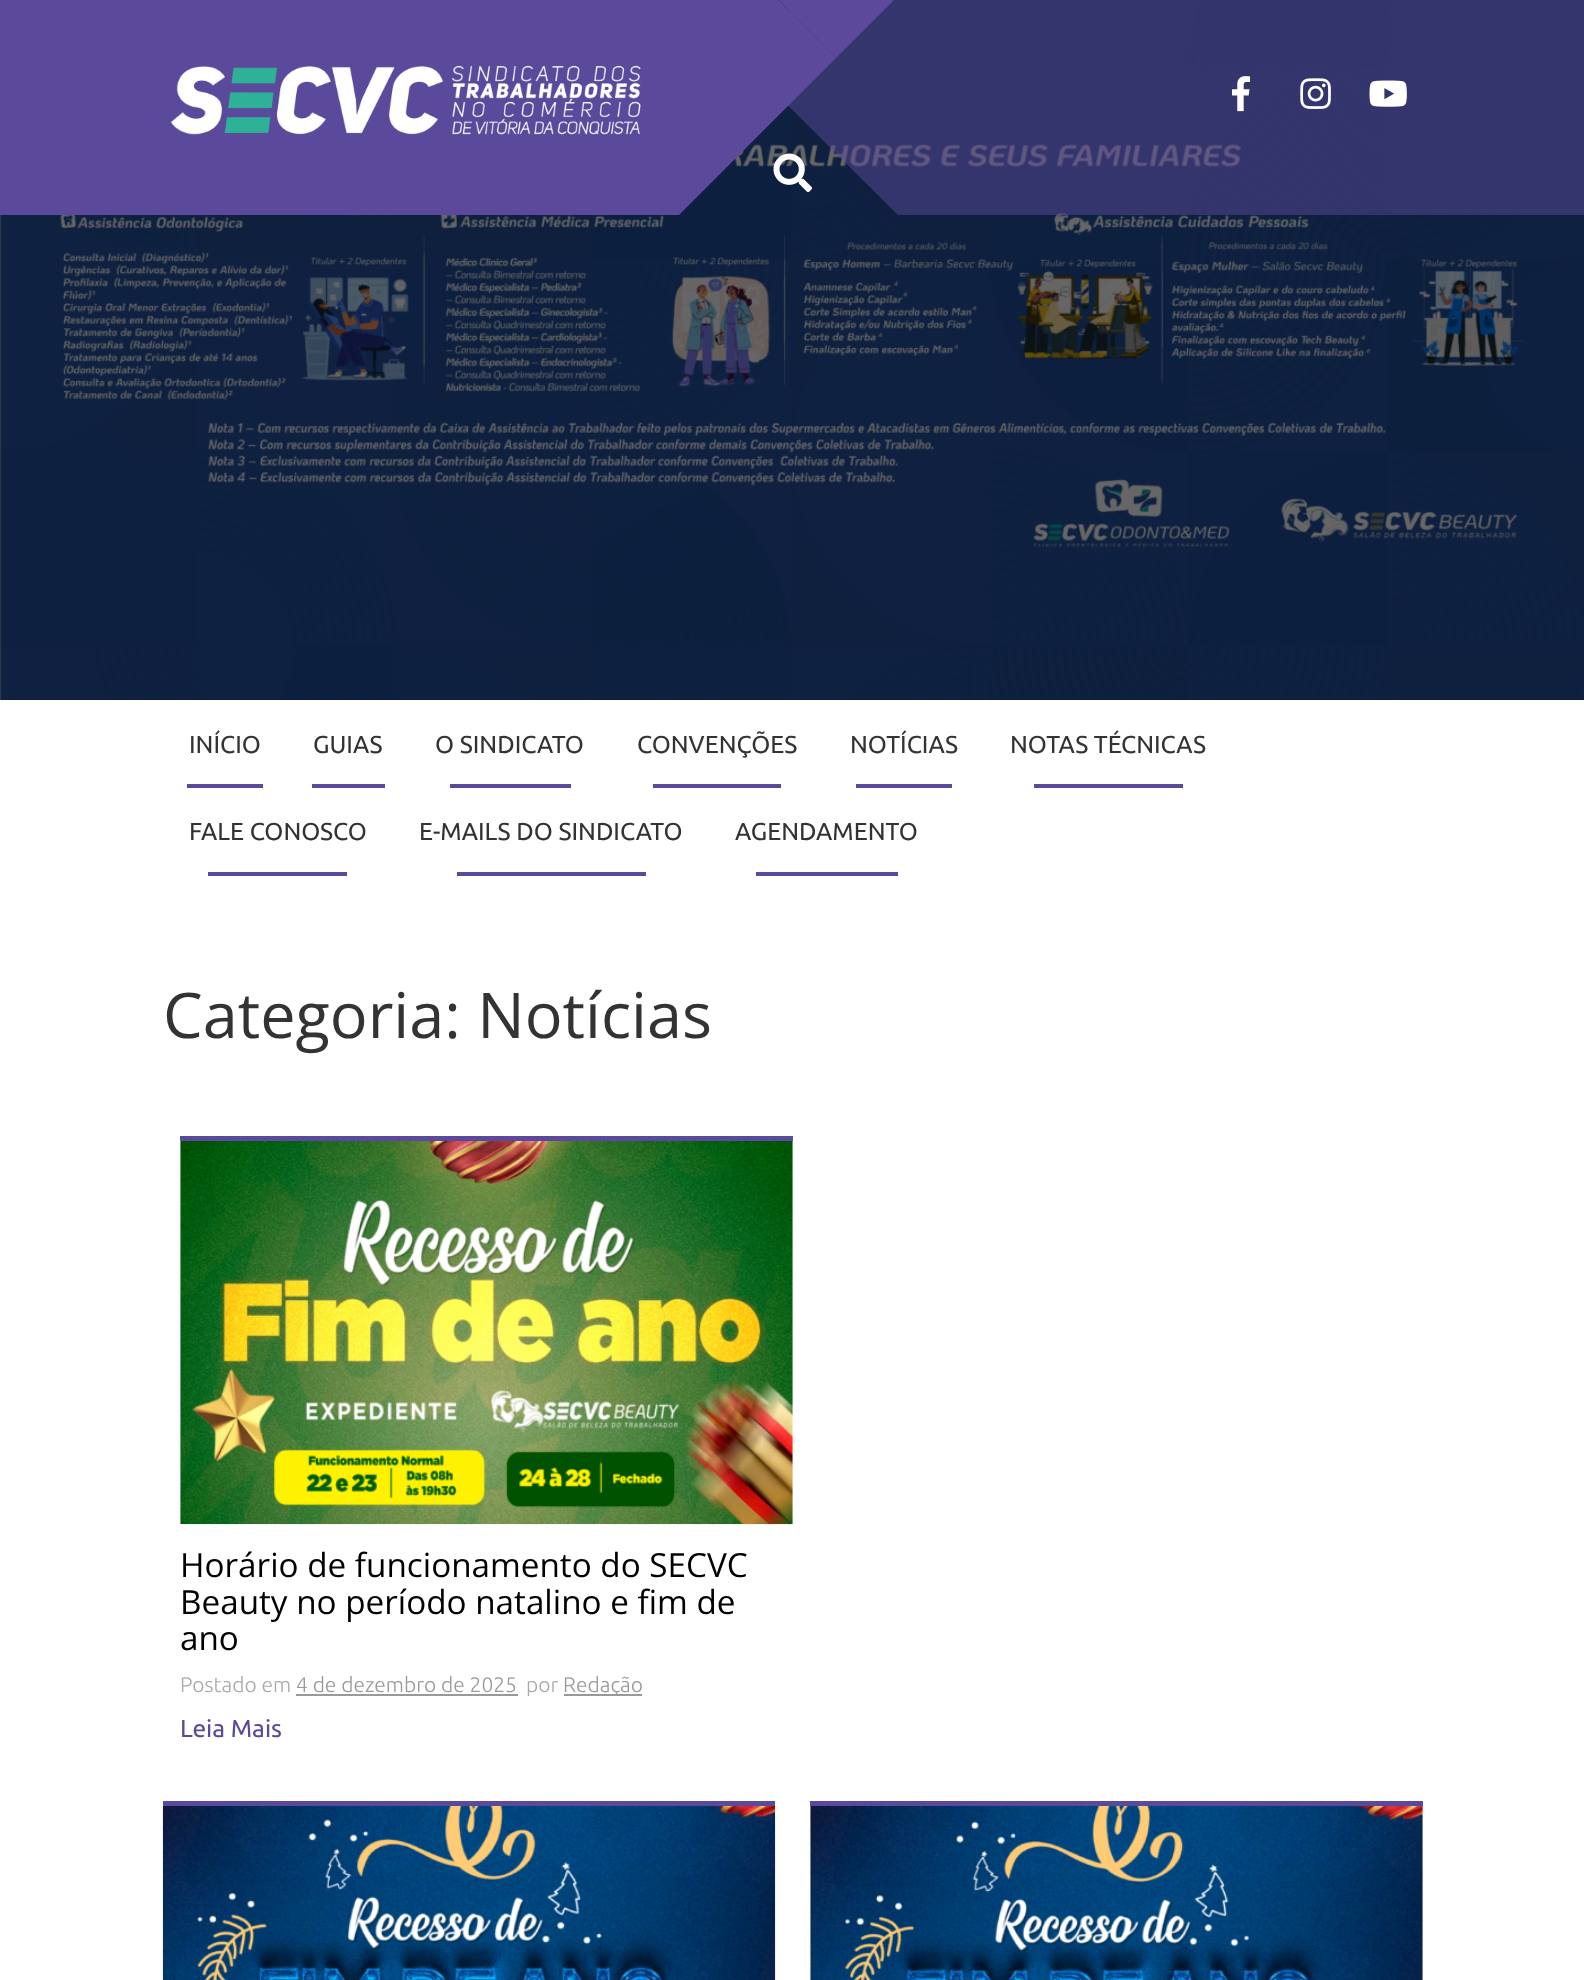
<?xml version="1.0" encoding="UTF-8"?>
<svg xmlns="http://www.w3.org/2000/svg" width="1584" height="1980">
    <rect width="100%" height="100%" fill="#FFFFFF"/>
    <rect x="0" y="215" width="2" height="485" fill="#666666"/>
    <image x="0" y="0" width="1584" height="700" href="img_01.png"/>
    <rect x="0" y="0" width="679" height="215" fill="#5B4A9B"/>
    <image x="170" y="65" width="471" height="70" href="img_02.png"/>
    <path d="M 898 -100 V 215 L 740 58 Z" fill="#5B4A9B" fill-opacity="0.5"/>
    <path d="M 679 -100 H 994 L 836 58 Z" fill="#5B4A9B"/>
    <path d="M 679 215 V -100 L 836 58 Z" fill="#5B4A9B"/>
    <rect x="898" y="0" width="525" height="215" fill="#5B4A9B" fill-opacity="0.5"/>
    <image x="1232" y="76" width="19" height="36" href="img_03.png"/>
    <image x="1300" y="78" width="31" height="31" href="img_04.png"/>
    <image x="1369" y="80" width="38" height="27" href="img_05.png"/>
    <rect x="1423" y="0" width="161" height="215" fill="#35356D"/>
    <image x="773" y="153" width="39" height="39" href="img_06.png"/>
    <text x="189" y="753" font-family="Ubuntu" font-size="24.5" fill="#333333">INÍCIO</text>
    <rect x="187" y="784" width="76" height="4" fill="#5B4A9B"/>
    <text x="313" y="753" font-family="Ubuntu" font-size="24.5" fill="#333333">GUIAS</text>
    <rect x="312" y="784" width="73" height="4" fill="#5B4A9B"/>
    <text x="435" y="753" font-family="Ubuntu" font-size="24.5" fill="#333333">O SINDICATO</text>
    <rect x="450" y="784" width="121" height="4" fill="#5B4A9B"/>
    <text x="637" y="753" font-family="Ubuntu" font-size="24.5" fill="#333333">CONVENÇÕES</text>
    <rect x="653" y="784" width="128" height="4" fill="#5B4A9B"/>
    <text x="850" y="753" font-family="Ubuntu" font-size="24.5" fill="#333333">NOTÍCIAS</text>
    <rect x="856" y="784" width="96" height="4" fill="#5B4A9B"/>
    <text x="1010" y="753" font-family="Ubuntu" font-size="24.5" fill="#333333">NOTAS TÉCNICAS</text>
    <rect x="1034" y="784" width="149" height="4" fill="#5B4A9B"/>
    <text x="189" y="840" font-family="Ubuntu" font-size="24.5" fill="#333333">FALE CONOSCO</text>
    <rect x="208" y="872" width="139" height="4" fill="#5B4A9B"/>
    <text x="419" y="840" font-family="Ubuntu" font-size="24.5" fill="#333333">E-MAILS DO SINDICATO</text>
    <rect x="457" y="872" width="189" height="4" fill="#5B4A9B"/>
    <text x="735" y="840" font-family="Ubuntu" font-size="24.5" fill="#333333">AGENDAMENTO</text>
    <rect x="756" y="872" width="142" height="4" fill="#5B4A9B"/>
    <text x="163" y="1038" font-family="Open Sans" font-size="63" fill="#333333">Categoria: Notícias</text>
    <rect x="180" y="1136" width="613" height="5" fill="#5B4A9B"/>
    <image x="180" y="1141" width="613" height="384" href="img_07.png"/>
    <text font-family="Open Sans" font-size="33.25" fill="#000000">
        <tspan x="180" y="1577">Horário de funcionamento do SECVC</tspan>
        <tspan x="180" y="1614">Beauty no período natalino e fim de</tspan>
        <tspan x="180" y="1650">ano</tspan>
    </text>
    <text x="180" y="1692" font-family="Ubuntu" font-size="21" font-weight="300" fill="#AAAAAA">Postado em</text>
    <text x="296" y="1692" font-family="Ubuntu" font-size="21" font-weight="300" fill="#999999">4 de dezembro de 2025</text>
    <rect x="296" y="1694" width="222" height="2" fill="#999999"/>
    <text x="526" y="1692" font-family="Ubuntu" font-size="21" font-weight="300" fill="#AAAAAA">por</text>
    <rect x="564" y="1694" width="78" height="2" fill="#999999"/>
    <text x="563" y="1692" font-family="Ubuntu" font-size="21" font-weight="300" fill="#999999">Redação</text>
    <text x="180" y="1737" font-family="Ubuntu" font-size="24.5" fill="#5B4A9B">Leia Mais</text>
    <rect x="163" y="1801" width="612" height="5" fill="#5B4A9B"/>
    <image x="162" y="1806" width="614" height="174" href="img_08.png"/>
    <rect x="810" y="1801" width="613" height="5" fill="#5B4A9B"/>
    <image x="810" y="1806" width="613" height="174" href="img_09.png"/>
</svg>
